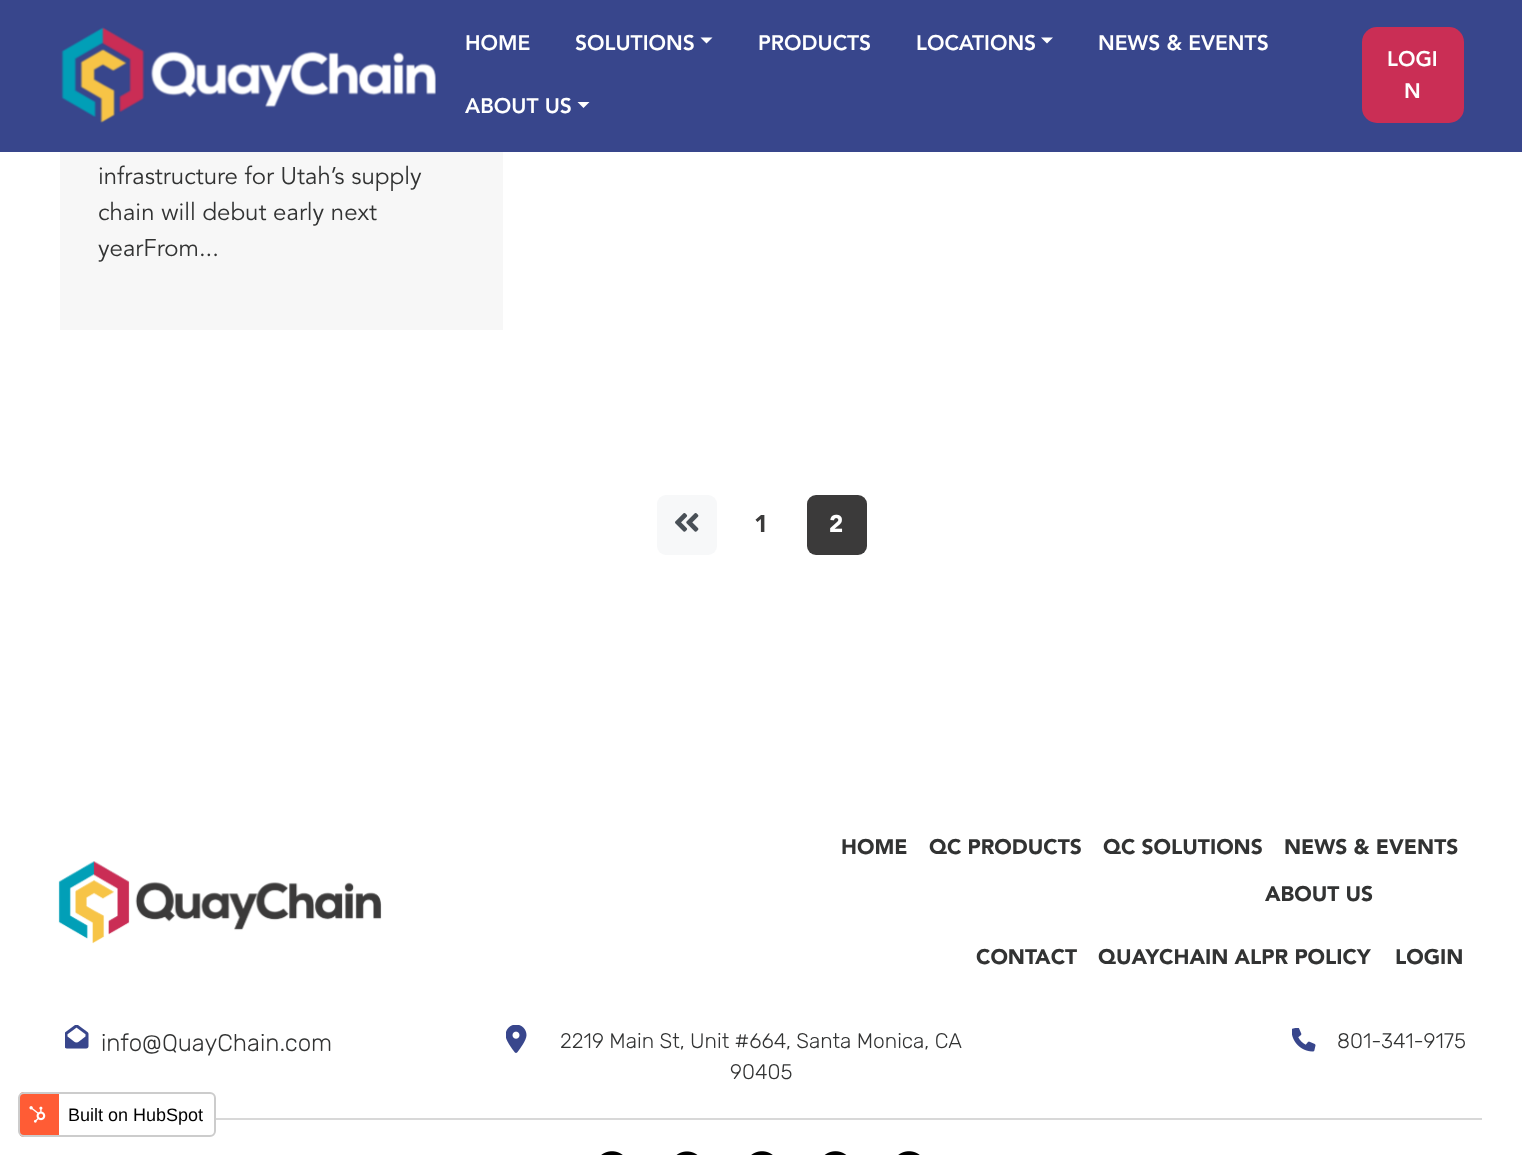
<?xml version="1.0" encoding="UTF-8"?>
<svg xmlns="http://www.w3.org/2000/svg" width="1522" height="1155">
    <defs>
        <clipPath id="clip1"><rect x="18" y="1092" width="198" height="45" rx="6"/></clipPath>
    </defs>
    <rect width="100%" height="100%" fill="#FFFFFF"/>
    <rect x="0" y="0" width="1522" height="152" fill="#38468C"/>
    <image x="61" y="27" width="375" height="96" href="img_01.png"/>
    <text x="465" y="50" font-family="'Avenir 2'" font-size="21" font-weight="900" fill="#FFFFFF">HOME</text>
    <text x="575" y="50" font-family="'Avenir 2'" font-size="21" font-weight="900" fill="#FFFFFF">SOLUTIONS</text>
    <path d="M 700.5 37.5 H 712.5 L 706.5 43.5 Z" fill="#FFFFFF"/>
    <text x="758" y="50" font-family="'Avenir 2'" font-size="21" font-weight="900" fill="#FFFFFF">PRODUCTS</text>
    <text x="916" y="50" font-family="'Avenir 2'" font-size="21" font-weight="900" fill="#FFFFFF">LOCATIONS</text>
    <path d="M 1041 37.5 H 1053 L 1047 43.5 Z" fill="#FFFFFF"/>
    <text x="1098" y="50" font-family="'Avenir 2'" font-size="21" font-weight="900" fill="#FFFFFF">NEWS &amp; EVENTS</text>
    <text x="465" y="113" font-family="'Avenir 2'" font-size="21" font-weight="900" fill="#FFFFFF">ABOUT US</text>
    <path d="M 577.5 102 H 589.5 L 583.5 108 Z" fill="#FFFFFF"/>
    <rect x="1362" y="27" width="102" height="96" rx="15" fill="#CA2E55"/>
    <text x="1387" y="66" font-family="'Avenir 2'" font-size="21" font-weight="900" fill="#FFFFFF">LOGI</text>
    <text x="1404" y="98" font-family="'Avenir 2'" font-size="21" font-weight="900" fill="#FFFFFF">N</text>
    <rect x="60" y="152" width="443" height="178" fill="#F7F7F7"/>
    <text font-family="Avenir" font-size="24" fill="#323333">
        <tspan x="98" y="184">infrastructure for Utah’s supply</tspan>
        <tspan x="98" y="220">chain will debut early next</tspan>
        <tspan x="98" y="256">yearFrom...</tspan>
    </text>
    <rect x="657" y="495" width="60" height="60" rx="9" fill="#F7F8F9"/>
    <image x="675" y="513" width="24" height="19" href="img_02.png"/>
    <text x="754" y="532" font-family="Avenir" font-size="24" font-weight="900" fill="#3B3A3A">1</text>
    <rect x="807" y="495" width="60" height="60" rx="9" fill="#3B3A3A"/>
    <text x="829" y="532" font-family="Avenir" font-size="24" font-weight="900" fill="#FFFFFF">2</text>
    <image x="58" y="861" width="324" height="83" href="img_03.png"/>
    <text x="841" y="854" font-family="Avenir" font-size="21" font-weight="900" fill="#323333">HOME</text>
    <text x="929" y="854" font-family="Avenir" font-size="21" font-weight="900" fill="#323333">QC PRODUCTS</text>
    <text x="1103" y="854" font-family="Avenir" font-size="21" font-weight="900" fill="#323333">QC SOLUTIONS</text>
    <text x="1284" y="854" font-family="Avenir" font-size="21" font-weight="900" fill="#323333">NEWS &amp; EVENTS</text>
    <text x="1265" y="901" font-family="Avenir" font-size="21" font-weight="900" fill="#323333">ABOUT US</text>
    <text x="976" y="964" font-family="Avenir" font-size="21" font-weight="900" fill="#323333">CONTACT</text>
    <text x="1098" y="964" font-family="Avenir" font-size="21" font-weight="900" fill="#323333">QUAYCHAIN ALPR POLICY</text>
    <text x="1395" y="964" font-family="Avenir" font-size="21" font-weight="900" fill="#323333">LOGIN</text>
    <image x="65" y="1025" width="24" height="24" href="img_04.png"/>
    <text x="101" y="1051" font-family="Rubik" font-size="24" font-weight="300" fill="#323333">info@QuayChain.com</text>
    <image x="506" y="1025" width="21" height="28" href="img_05.png"/>
    <text x="560" y="1048" font-family="Rubik" font-size="21" font-weight="300" fill="#323333">2219 Main St, Unit #664, Santa Monica, CA</text>
    <text x="730" y="1079" font-family="Rubik" font-size="21" font-weight="300" fill="#323333">90405</text>
    <image x="1292" y="1028" width="24" height="24" href="img_06.png"/>
    <text x="1337" y="1048" font-family="Rubik" font-size="21" font-weight="300" fill="#323333">801-341-9175</text>
    <rect x="216" y="1118" width="1266" height="2" fill="#D8D8D8"/>
    <image x="601" y="1151" width="22" height="4" href="img_07.png"/>
    <image x="676" y="1151" width="22" height="4" href="img_08.png"/>
    <image x="751" y="1151" width="22" height="4" href="img_09.png"/>
    <image x="824" y="1151" width="23" height="4" href="img_10.png"/>
    <image x="898" y="1151" width="22" height="4" href="img_09.png"/>
    <g clip-path="url(#clip1)">
        <rect x="20" y="1092" width="39" height="45" fill="#FF5C35"/>
    </g>
    <rect x="19" y="1093" width="196" height="43" rx="5" fill="none" stroke="#CCCCCC" stroke-width="2"/>
    <image x="29" y="1106" width="17" height="17" href="img_11.png"/>
    <text x="68" y="1121" font-family="Liberation Sans" font-size="18" fill="#000000">Built on HubSpot</text>
</svg>
